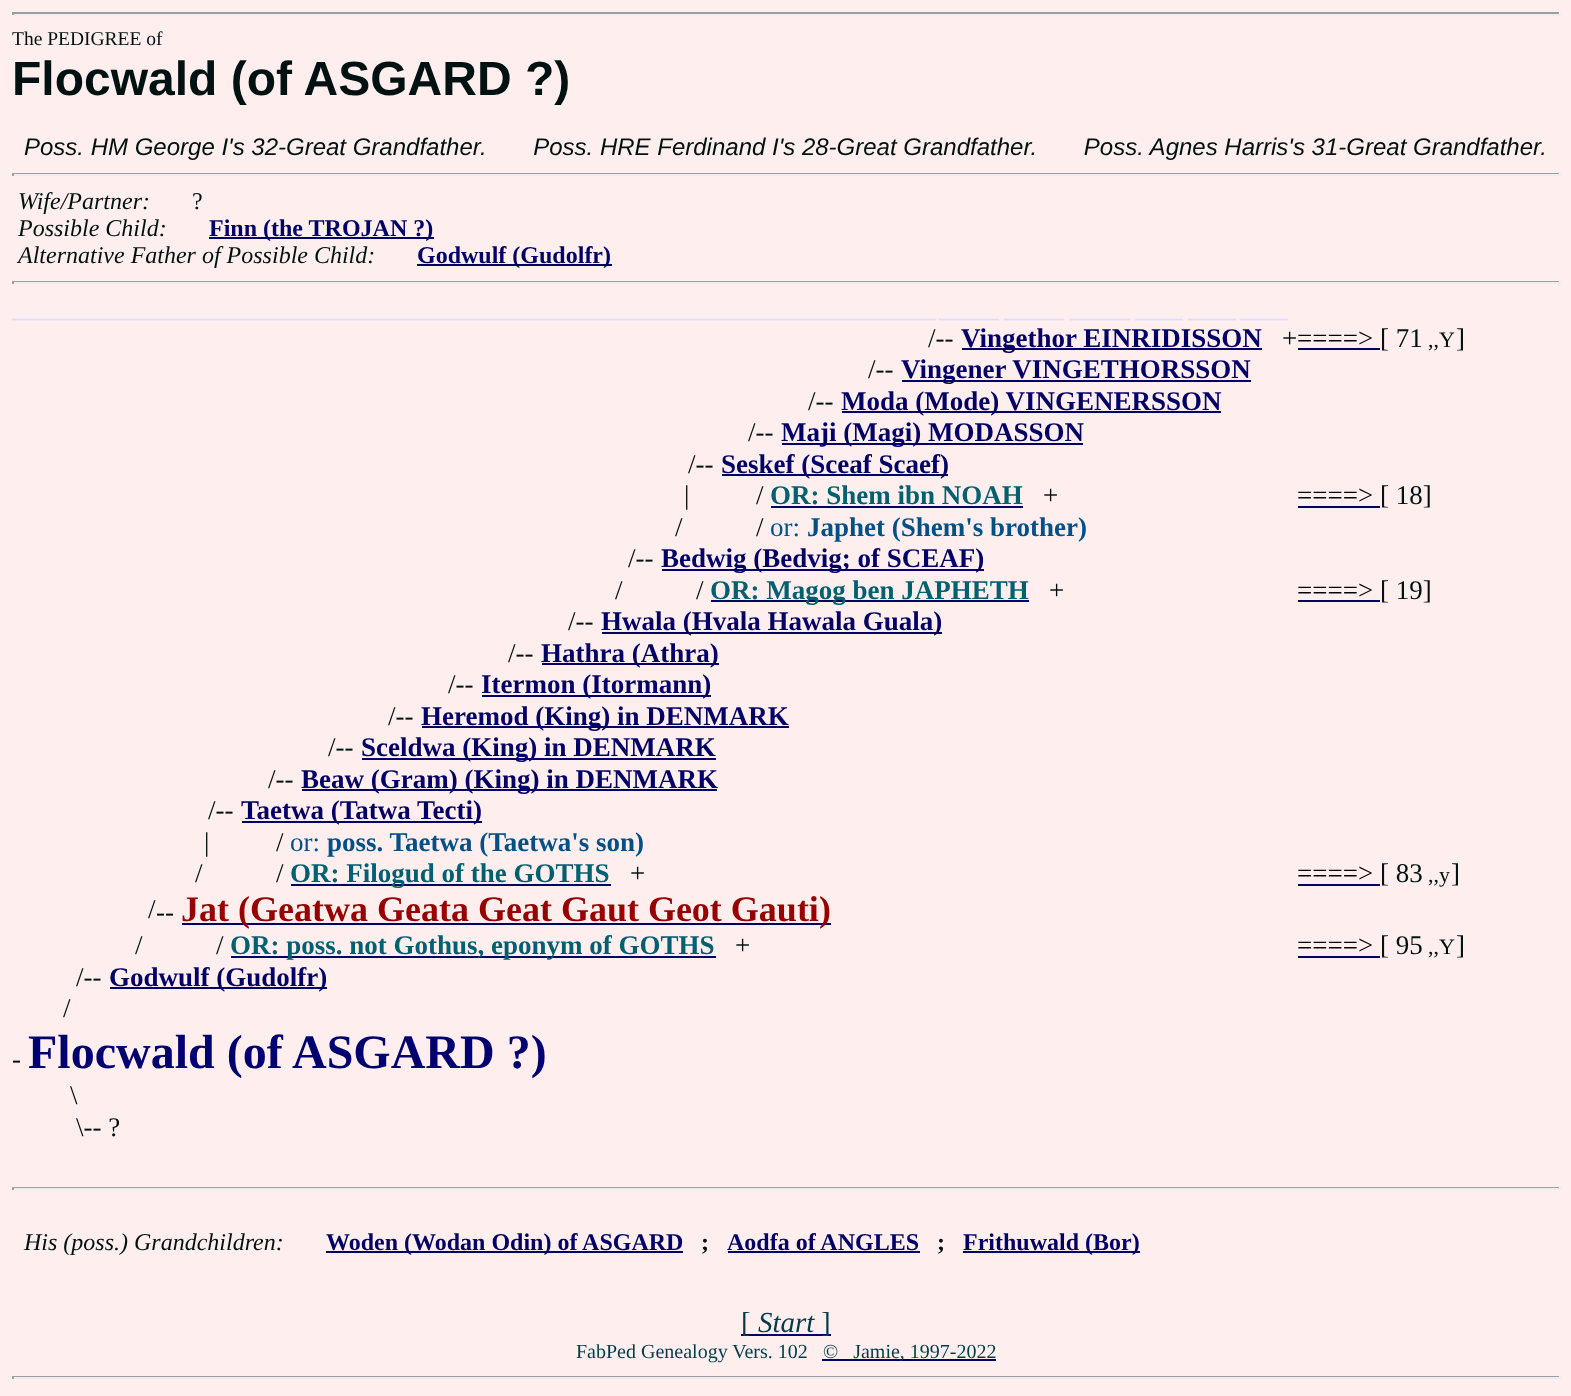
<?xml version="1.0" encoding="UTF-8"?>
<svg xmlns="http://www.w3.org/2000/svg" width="1571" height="1396">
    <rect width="100%" height="100%" fill="#FFEEEE"/>
    <rect x="12" y="12" width="1548" height="2" fill="#9F9F9F"/>
    <rect x="1559" y="12" width="2" height="3" fill="#EEEEEE"/>
    <rect x="12" y="14" width="1548" height="2" fill="#EEEEEE"/>
    <rect x="12" y="12" width="2" height="3" fill="#9F9F9F"/>
    <text x="12" y="45" font-family="Liberation Serif" font-size="19.5" fill="#001111">The PEDIGREE of</text>
    <text x="12" y="95" font-family="Liberation Sans" font-size="48" font-weight="700" fill="#001111">Flocwald (of ASGARD ?)</text>
    <text x="24" y="155" font-family="Liberation Sans" font-size="24" font-style="italic" fill="#001111" xml:space="preserve">Poss. HM George I's 32-Great Grandfather.       Poss. HRE Ferdinand I's 28-Great Grandfather.       Poss. Agnes Harris's 31-Great Grandfather.</text>
    <rect x="12" y="173" width="1548" height="1" fill="#9F9F9F"/>
    <rect x="1559" y="173" width="2" height="3" fill="#EEEEEE"/>
    <rect x="12" y="174" width="1548" height="2" fill="#EEEEEE"/>
    <rect x="12" y="173" width="2" height="3" fill="#9F9F9F"/>
    <text x="18" y="209" font-family="Liberation Serif" font-size="24" font-style="italic" fill="#001111">Wife/Partner:</text>
    <text x="192" y="209" font-family="Liberation Serif" font-size="24" fill="#001111">?</text>
    <text x="18" y="236" font-family="Liberation Serif" font-size="24" font-style="italic" fill="#001111">Possible Child:</text>
    <rect x="209" y="237" width="225" height="2" fill="#000066"/>
    <text x="209" y="236" font-family="Liberation Serif" font-size="24" font-weight="700" fill="#000066">Finn (the TROJAN ?)</text>
    <text x="18" y="263" font-family="Liberation Serif" font-size="24" font-style="italic" fill="#001111">Alternative Father of Possible Child:</text>
    <rect x="417" y="264" width="195" height="2" fill="#000066"/>
    <text x="417" y="263" font-family="Liberation Serif" font-size="24" font-weight="700" fill="#000066">Godwulf (Gudolfr)</text>
    <rect x="12" y="281" width="1548" height="1" fill="#9F9F9F"/>
    <rect x="1559" y="281" width="2" height="3" fill="#EEEEEE"/>
    <rect x="12" y="282" width="1548" height="2" fill="#EEEEEE"/>
    <rect x="12" y="281" width="2" height="3" fill="#9F9F9F"/>
    <text x="12" y="317" font-family="Liberation Serif" font-size="24" font-weight="700" fill="#DDDDFF">_____________________________________________________________________________</text>
    <text x="939" y="317" font-family="Liberation Serif" font-size="24" font-weight="700" fill="#DDDDFF">_____</text>
    <text x="1004" y="317" font-family="Liberation Serif" font-size="24" font-weight="700" fill="#DDDDFF">_____</text>
    <text x="1070" y="317" font-family="Liberation Serif" font-size="24" font-weight="700" fill="#DDDDFF">_____</text>
    <text x="1135" y="317" font-family="Liberation Serif" font-size="24" font-weight="700" fill="#DDDDFF">____</text>
    <text x="1188" y="317" font-family="Liberation Serif" font-size="24" font-weight="700" fill="#DDDDFF">____</text>
    <text x="1240" y="317" font-family="Liberation Serif" font-size="24" font-weight="700" fill="#DDDDFF">____</text>
    <text x="928" y="347" font-family="Liberation Serif" font-size="27" fill="#001111">/--</text>
    <rect x="962" y="348" width="300" height="2" fill="#000066"/>
    <text x="961" y="347" font-family="Liberation Serif" font-size="27" font-weight="700" fill="#000066">Vingethor EINRIDISSON</text>
    <text x="1282" y="347" font-family="Liberation Serif" font-size="27" fill="#001111">+</text>
    <text x="1297" y="347" font-family="Liberation Serif" font-size="27" fill="#000000">====&gt;</text>
    <rect x="1298" y="348" width="82" height="2" fill="#000066"/>
    <text x="1380" y="347" font-family="Liberation Serif" font-size="27" fill="#001111">[ 71</text>
    <text x="1428" y="347" font-family="Liberation Serif" font-size="22" fill="#001111">,,Y</text>
    <text x="1456" y="347" font-family="Liberation Serif" font-size="27" fill="#001111">]</text>
    <text x="868" y="378" font-family="Liberation Serif" font-size="27" fill="#001111">/--</text>
    <rect x="902" y="380" width="349" height="2" fill="#000066"/>
    <text x="901" y="378" font-family="Liberation Serif" font-size="27" font-weight="700" fill="#000066">Vingener VINGETHORSSON</text>
    <text x="808" y="410" font-family="Liberation Serif" font-size="27" fill="#001111">/--</text>
    <rect x="842" y="411" width="379" height="2" fill="#000066"/>
    <text x="841" y="410" font-family="Liberation Serif" font-size="27" font-weight="700" fill="#000066">Moda (Mode) VINGENERSSON</text>
    <text x="748" y="441" font-family="Liberation Serif" font-size="27" fill="#001111">/--</text>
    <rect x="782" y="443" width="301" height="2" fill="#000066"/>
    <text x="781" y="441" font-family="Liberation Serif" font-size="27" font-weight="700" fill="#000066">Maji (Magi) MODASSON</text>
    <text x="688" y="473" font-family="Liberation Serif" font-size="27" fill="#001111">/--</text>
    <rect x="722" y="474" width="226" height="2" fill="#000066"/>
    <text x="721" y="473" font-family="Liberation Serif" font-size="27" font-weight="700" fill="#000066">Seskef (Sceaf Scaef)</text>
    <text x="684" y="504" font-family="Liberation Serif" font-size="27" fill="#001111">|</text>
    <text x="756" y="504" font-family="Liberation Serif" font-size="27" fill="#001111">/</text>
    <text x="770" y="504" font-family="Liberation Serif" font-size="27" font-weight="700" fill="#006070">OR: Shem ibn NOAH</text>
    <rect x="771" y="506" width="252" height="2" fill="#000066"/>
    <text x="1043" y="504" font-family="Liberation Serif" font-size="27" fill="#001111">+</text>
    <text x="1297" y="504" font-family="Liberation Serif" font-size="27" fill="#000000">====&gt;</text>
    <rect x="1298" y="506" width="82" height="2" fill="#000066"/>
    <text x="1380" y="504" font-family="Liberation Serif" font-size="27" fill="#001111">[ 18]</text>
    <text x="675" y="536" font-family="Liberation Serif" font-size="27" fill="#001111">/</text>
    <text x="756" y="536" font-family="Liberation Serif" font-size="27" fill="#001111">/</text>
    <text x="770" y="536" font-family="Liberation Serif" font-size="27" fill="#005088">or:</text>
    <text x="807" y="536" font-family="Liberation Serif" font-size="27" font-weight="700" fill="#005088">Japhet (Shem's brother)</text>
    <text x="628" y="567" font-family="Liberation Serif" font-size="27" fill="#001111">/--</text>
    <rect x="662" y="569" width="322" height="2" fill="#000066"/>
    <text x="661" y="567" font-family="Liberation Serif" font-size="27" font-weight="700" fill="#000066">Bedwig (Bedvig; of SCEAF)</text>
    <text x="615" y="599" font-family="Liberation Serif" font-size="27" fill="#001111">/</text>
    <text x="696" y="599" font-family="Liberation Serif" font-size="27" fill="#001111">/</text>
    <rect x="711" y="600" width="318" height="2" fill="#000066"/>
    <text x="710" y="599" font-family="Liberation Serif" font-size="27" font-weight="700" fill="#006070">OR: Magog ben JAPHETH</text>
    <text x="1049" y="599" font-family="Liberation Serif" font-size="27" fill="#001111">+</text>
    <text x="1297" y="599" font-family="Liberation Serif" font-size="27" fill="#000000">====&gt;</text>
    <rect x="1298" y="600" width="82" height="2" fill="#000066"/>
    <text x="1380" y="599" font-family="Liberation Serif" font-size="27" fill="#001111">[ 19]</text>
    <text x="568" y="630" font-family="Liberation Serif" font-size="27" fill="#001111">/--</text>
    <rect x="602" y="632" width="340" height="2" fill="#000066"/>
    <text x="601" y="630" font-family="Liberation Serif" font-size="27" font-weight="700" fill="#000066">Hwala (Hvala Hawala Guala)</text>
    <text x="508" y="662" font-family="Liberation Serif" font-size="27" fill="#001111">/--</text>
    <rect x="542" y="663" width="177" height="2" fill="#000066"/>
    <text x="541" y="662" font-family="Liberation Serif" font-size="27" font-weight="700" fill="#000066">Hathra (Athra)</text>
    <text x="448" y="693" font-family="Liberation Serif" font-size="27" fill="#001111">/--</text>
    <rect x="482" y="695" width="229" height="2" fill="#000066"/>
    <text x="481" y="693" font-family="Liberation Serif" font-size="27" font-weight="700" fill="#000066">Itermon (Itormann)</text>
    <text x="388" y="725" font-family="Liberation Serif" font-size="27" fill="#001111">/--</text>
    <rect x="422" y="726" width="367" height="2" fill="#000066"/>
    <text x="421" y="725" font-family="Liberation Serif" font-size="27" font-weight="700" fill="#000066">Heremod (King) in DENMARK</text>
    <text x="328" y="756" font-family="Liberation Serif" font-size="27" fill="#001111">/--</text>
    <rect x="362" y="758" width="354" height="2" fill="#000066"/>
    <text x="361" y="756" font-family="Liberation Serif" font-size="27" font-weight="700" fill="#000066">Sceldwa (King) in DENMARK</text>
    <text x="268" y="788" font-family="Liberation Serif" font-size="27" fill="#001111">/--</text>
    <rect x="302" y="789" width="415" height="2" fill="#000066"/>
    <text x="301" y="788" font-family="Liberation Serif" font-size="27" font-weight="700" fill="#000066">Beaw (Gram) (King) in DENMARK</text>
    <text x="208" y="819" font-family="Liberation Serif" font-size="27" fill="#001111">/--</text>
    <rect x="242" y="821" width="240" height="2" fill="#000066"/>
    <text x="241" y="819" font-family="Liberation Serif" font-size="27" font-weight="700" fill="#000066">Taetwa (Tatwa Tecti)</text>
    <text x="204" y="851" font-family="Liberation Serif" font-size="27" fill="#001111">|</text>
    <text x="276" y="851" font-family="Liberation Serif" font-size="27" fill="#001111">/</text>
    <text x="290" y="851" font-family="Liberation Serif" font-size="27" fill="#005088">or:</text>
    <text x="327" y="851" font-family="Liberation Serif" font-size="27" font-weight="700" fill="#005088">poss. Taetwa (Taetwa's son)</text>
    <text x="195" y="882" font-family="Liberation Serif" font-size="27" fill="#001111">/</text>
    <text x="276" y="882" font-family="Liberation Serif" font-size="27" fill="#001111">/</text>
    <rect x="291" y="884" width="320" height="2" fill="#000066"/>
    <text x="290" y="882" font-family="Liberation Serif" font-size="27" font-weight="700" fill="#006070">OR: Filogud of the GOTHS</text>
    <text x="630" y="882" font-family="Liberation Serif" font-size="27" fill="#001111">+</text>
    <text x="1297" y="882" font-family="Liberation Serif" font-size="27" fill="#000000">====&gt;</text>
    <rect x="1298" y="884" width="82" height="2" fill="#000066"/>
    <text x="1380" y="882" font-family="Liberation Serif" font-size="27" fill="#001111">[ 83</text>
    <text x="1428" y="882" font-family="Liberation Serif" font-size="22" fill="#001111">,,y</text>
    <text x="1451" y="882" font-family="Liberation Serif" font-size="27" fill="#001111">]</text>
    <text x="148" y="918" font-family="Liberation Serif" font-size="27" fill="#001111">/</text>
    <text x="156" y="921" font-family="Liberation Serif" font-size="27" fill="#001111">--</text>
    <rect x="182" y="923" width="649" height="2" fill="#000066"/>
    <text x="181" y="921" font-family="Liberation Serif" font-size="36" font-weight="700" fill="#980000">Jat (Geatwa Geata Geat Gaut Geot Gauti)</text>
    <text x="135" y="954" font-family="Liberation Serif" font-size="27" fill="#001111">/</text>
    <text x="216" y="954" font-family="Liberation Serif" font-size="27" fill="#001111">/</text>
    <rect x="231" y="956" width="485" height="2" fill="#000066"/>
    <text x="230" y="954" font-family="Liberation Serif" font-size="27" font-weight="700" fill="#006070">OR: poss. not Gothus, eponym of GOTHS</text>
    <text x="735" y="954" font-family="Liberation Serif" font-size="27" fill="#001111">+</text>
    <text x="1297" y="954" font-family="Liberation Serif" font-size="27" fill="#000000">====&gt;</text>
    <rect x="1298" y="956" width="82" height="2" fill="#000066"/>
    <text x="1380" y="954" font-family="Liberation Serif" font-size="27" fill="#001111">[ 95</text>
    <text x="1428" y="954" font-family="Liberation Serif" font-size="22" fill="#001111">,,Y</text>
    <text x="1456" y="954" font-family="Liberation Serif" font-size="27" fill="#001111">]</text>
    <text x="76" y="986" font-family="Liberation Serif" font-size="27" fill="#001111">/--</text>
    <rect x="110" y="987" width="217" height="2" fill="#000066"/>
    <text x="109" y="986" font-family="Liberation Serif" font-size="27" font-weight="700" fill="#000066">Godwulf (Gudolfr)</text>
    <text x="63" y="1017" font-family="Liberation Serif" font-size="27" fill="#001111">/</text>
    <text x="12" y="1068" font-family="Liberation Serif" font-size="27" fill="#001111">-</text>
    <text x="28" y="1068" font-family="Liberation Serif" font-size="48" font-weight="700" fill="#000070">Flocwald (of ASGARD ?)</text>
    <text x="70" y="1104" font-family="Liberation Serif" font-size="27" fill="#001111">\</text>
    <text x="76" y="1136" font-family="Liberation Serif" font-size="27" fill="#001111">\-- ?</text>
    <rect x="12" y="1187" width="1548" height="1" fill="#9F9F9F"/>
    <rect x="1559" y="1187" width="2" height="3" fill="#EEEEEE"/>
    <rect x="12" y="1188" width="1548" height="2" fill="#EEEEEE"/>
    <rect x="12" y="1187" width="2" height="3" fill="#9F9F9F"/>
    <text x="24" y="1250" font-family="Liberation Serif" font-size="24" font-style="italic" fill="#001111">His (poss.) Grandchildren:</text>
    <rect x="326" y="1251" width="357" height="2" fill="#000066"/>
    <text x="326" y="1250" font-family="Liberation Serif" font-size="24" font-weight="700" fill="#000066">Woden (Wodan Odin) of ASGARD</text>
    <text x="701" y="1250" font-family="Liberation Serif" font-size="24" font-weight="700" fill="#001111">;</text>
    <text x="727" y="1250" font-family="Liberation Serif" font-size="24" font-weight="700" fill="#000066">Aodfa of ANGLES</text>
    <rect x="728" y="1251" width="192" height="2" fill="#000066"/>
    <text x="937" y="1250" font-family="Liberation Serif" font-size="24" font-weight="700" fill="#001111">;</text>
    <rect x="963" y="1251" width="177" height="2" fill="#000066"/>
    <text x="963" y="1250" font-family="Liberation Serif" font-size="24" font-weight="700" fill="#000066">Frithuwald (Bor)</text>
    <rect x="741" y="1334" width="90" height="2" fill="#000066"/>
    <text x="741" y="1332" font-family="Liberation Serif" font-size="29" fill="#003C48">[</text>
    <text x="758" y="1332" font-family="Liberation Serif" font-size="29" font-style="italic" fill="#003C48">Start</text>
    <text x="821" y="1332" font-family="Liberation Serif" font-size="29" fill="#003C48">]</text>
    <text x="576" y="1358" font-family="Liberation Serif" font-size="20" fill="#003C48">FabPed Genealogy Vers. 102</text>
    <rect x="822" y="1359" width="174" height="2" fill="#000066"/>
    <text x="823" y="1358" font-family="Liberation Serif" font-size="20" fill="#003C48" xml:space="preserve">©   Jamie, 1997-2022</text>
    <rect x="12" y="1376" width="1548" height="1" fill="#9F9F9F"/>
    <rect x="1559" y="1376" width="2" height="3" fill="#EEEEEE"/>
    <rect x="12" y="1377" width="1548" height="2" fill="#EEEEEE"/>
    <rect x="12" y="1376" width="2" height="3" fill="#9F9F9F"/>
</svg>
